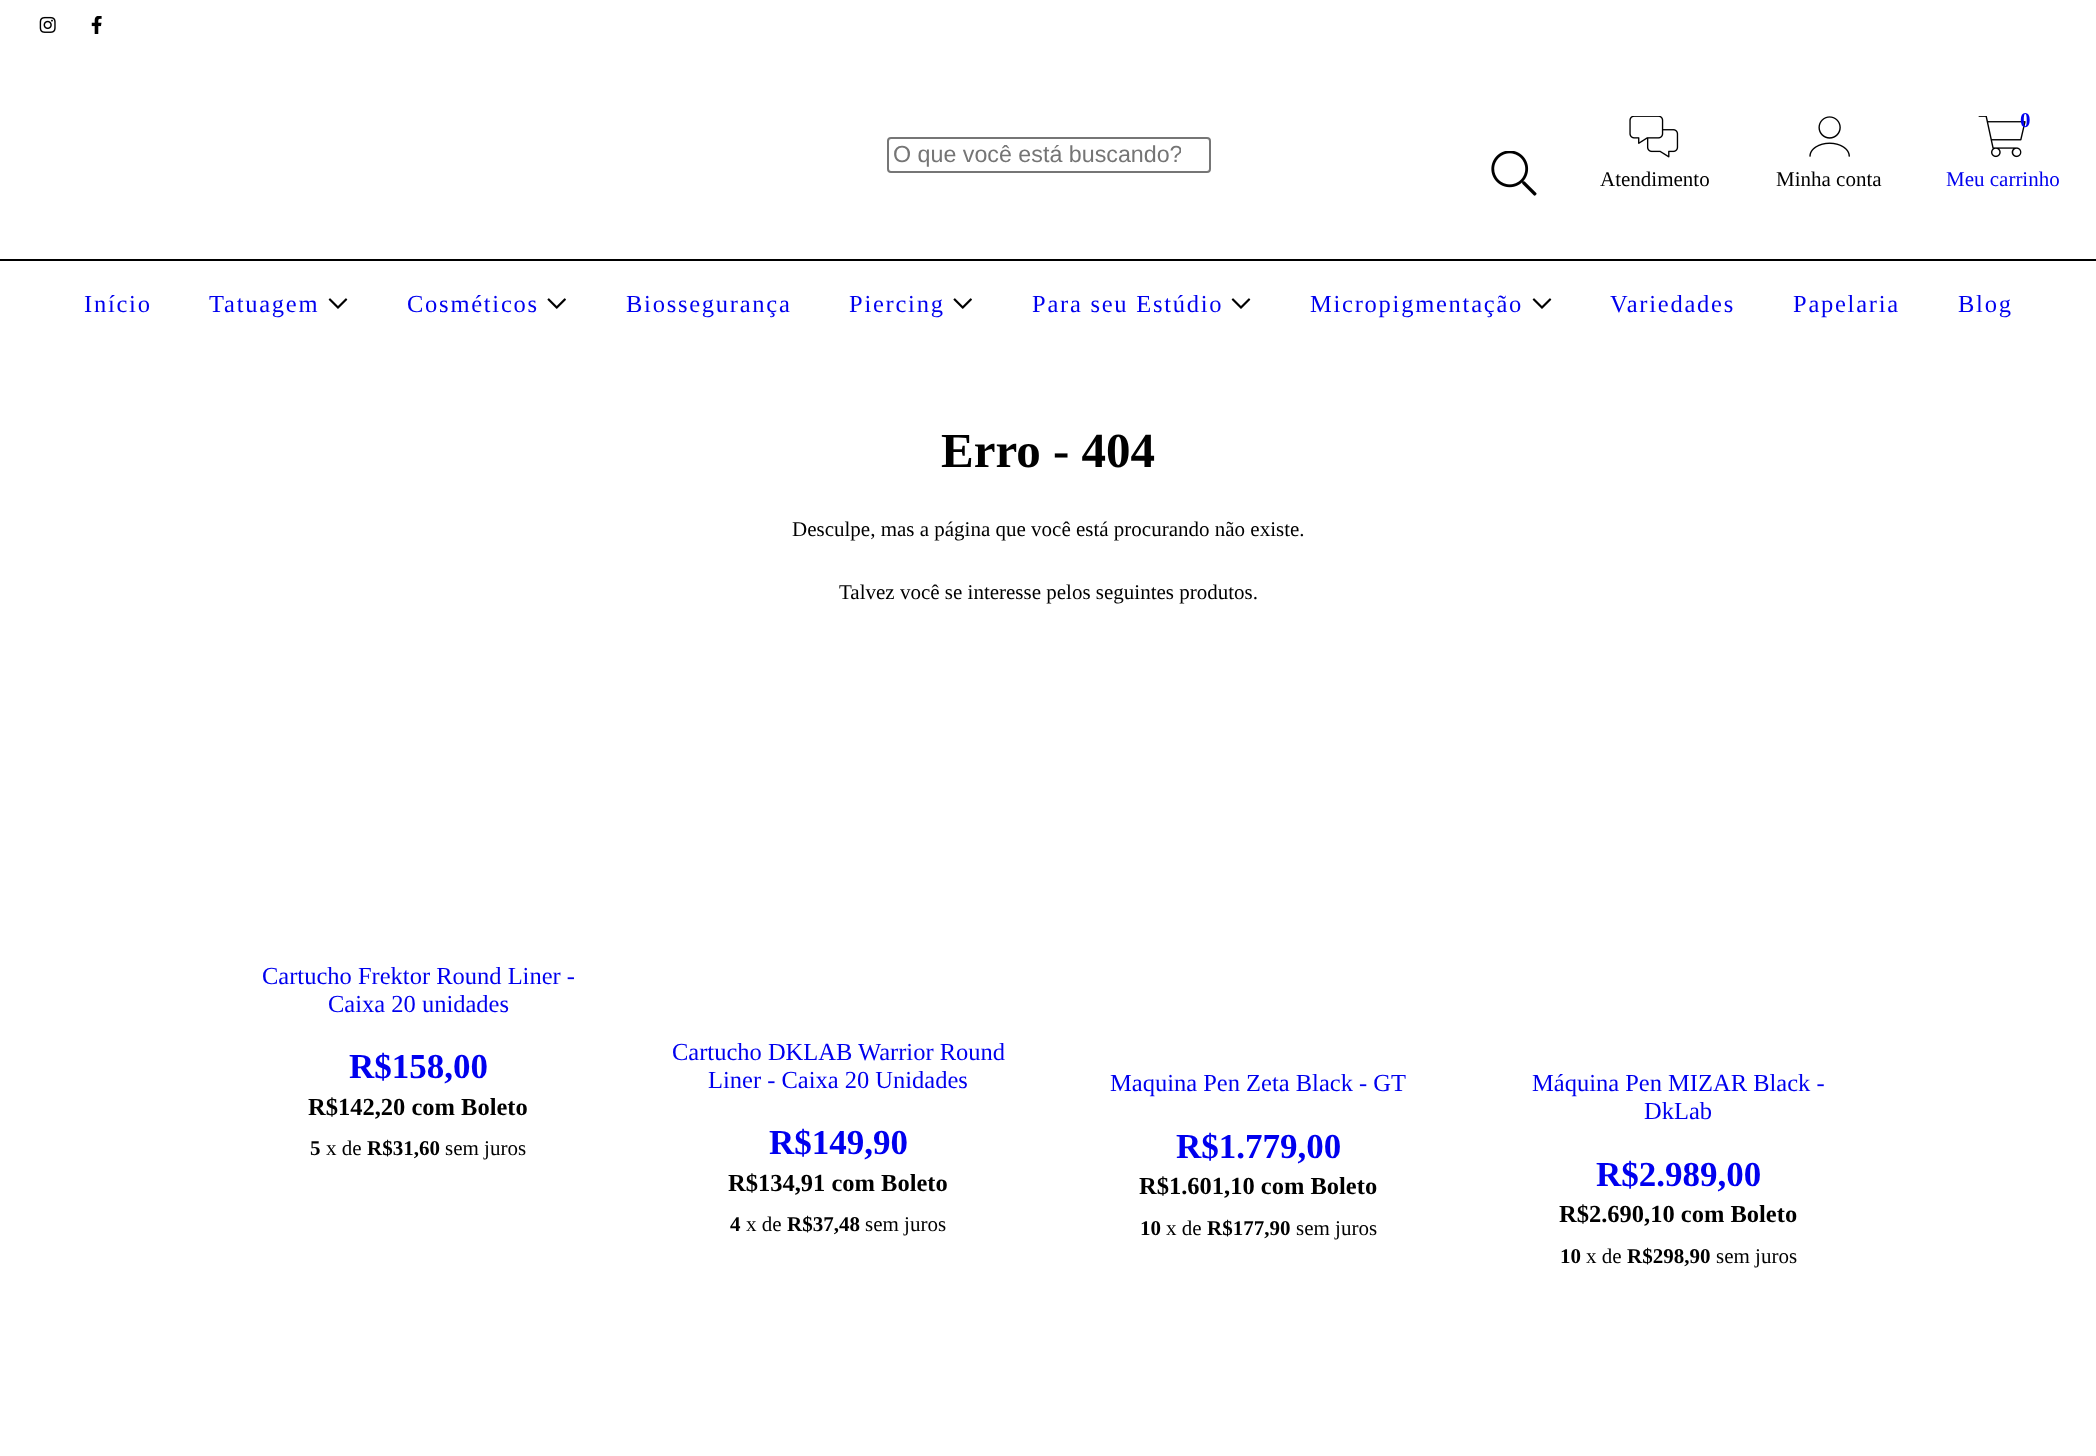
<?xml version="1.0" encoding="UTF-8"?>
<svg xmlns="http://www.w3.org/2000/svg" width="2096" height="1456">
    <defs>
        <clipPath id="clip1"><rect x="894" y="142" width="287" height="26"/></clipPath>
    </defs>
    <rect width="100%" height="100%" fill="#FFFFFF"/>
    <image x="39" y="16" width="17" height="17" href="img_01.png"/>
    <image x="91" y="16" width="11" height="18" href="img_02.png"/>
    <rect x="888" y="138" width="322" height="34" rx="3" fill="none" stroke="#767676" stroke-width="2"/>
    <g clip-path="url(#clip1)">
        <text x="893" y="162" font-family="Liberation Sans" font-size="23.25" fill="#757575">O que você está buscando?</text>
    </g>
    <image x="1491" y="151" width="46" height="45" href="img_03.png"/>
    <image x="1629" y="116" width="50" height="42" href="img_04.png"/>
    <text x="1600" y="186" font-family="Liberation Serif" font-size="21" fill="#000000">Atendimento</text>
    <image x="1809" y="116" width="41" height="41" href="img_05.png"/>
    <text x="1776" y="186" font-family="Liberation Serif" font-size="21" fill="#000000">Minha conta</text>
    <image x="1978" y="116" width="48" height="42" href="img_06.png"/>
    <text x="2020" y="127" font-family="Liberation Serif" font-size="21" font-weight="700" fill="#0000EE">0</text>
    <text x="1946" y="186" font-family="Liberation Serif" font-size="21" fill="#0000EE">Meu carrinho</text>
    <rect x="0" y="259" width="2096" height="2" fill="#000000"/>
    <text x="84" y="312" font-family="Liberation Serif" font-size="24.5" letter-spacing="1.75" fill="#0000EE">Início</text>
    <text x="209" y="312" font-family="Liberation Serif" font-size="24.5" letter-spacing="1.75" fill="#0000EE">Tatuagem</text>
    <image x="328" y="298" width="20" height="11" href="img_07.png"/>
    <text x="407" y="312" font-family="Liberation Serif" font-size="24.5" letter-spacing="1.75" fill="#0000EE">Cosméticos</text>
    <image x="547" y="298" width="19" height="11" href="img_08.png"/>
    <text x="626" y="312" font-family="Liberation Serif" font-size="24.5" letter-spacing="1.75" fill="#0000EE">Biossegurança</text>
    <text x="849" y="312" font-family="Liberation Serif" font-size="24.5" letter-spacing="1.75" fill="#0000EE">Piercing</text>
    <image x="953" y="298" width="19" height="11" href="img_08.png"/>
    <text x="1032" y="312" font-family="Liberation Serif" font-size="24.5" letter-spacing="1.75" fill="#0000EE">Para seu Estúdio</text>
    <image x="1231" y="298" width="20" height="11" href="img_07.png"/>
    <text x="1310" y="312" font-family="Liberation Serif" font-size="24.5" letter-spacing="1.75" fill="#0000EE">Micropigmentação</text>
    <image x="1532" y="298" width="20" height="11" href="img_07.png"/>
    <text x="1610" y="312" font-family="Liberation Serif" font-size="24.5" letter-spacing="1.75" fill="#0000EE">Variedades</text>
    <text x="1793" y="312" font-family="Liberation Serif" font-size="24.5" letter-spacing="1.75" fill="#0000EE">Papelaria</text>
    <text x="1958" y="312" font-family="Liberation Serif" font-size="24.5" letter-spacing="1.75" fill="#0000EE">Blog</text>
    <text x="941" y="467" font-family="Liberation Serif" font-size="49" font-weight="700" fill="#000000">Erro - 404</text>
    <text x="792" y="536" font-family="Liberation Serif" font-size="21" fill="#000000">Desculpe, mas a página que você está procurando não existe.</text>
    <text x="839" y="599" font-family="Liberation Serif" font-size="21" fill="#000000">Talvez você se interesse pelos seguintes produtos.</text>
    <text x="262" y="984" font-family="Liberation Serif" font-size="24.5" fill="#0000EE">Cartucho Frektor Round Liner -</text>
    <text x="328" y="1012" font-family="Liberation Serif" font-size="24.5" fill="#0000EE">Caixa 20 unidades</text>
    <text x="349" y="1078" font-family="Liberation Serif" font-size="35" font-weight="700" fill="#0000EE">R$158,00</text>
    <text x="308" y="1115" font-family="Liberation Serif" font-size="24.5" font-weight="700" fill="#000000">R$142,20 com Boleto</text>
    <text x="310" y="1155" font-family="Liberation Serif" font-size="21" font-weight="700" fill="#000000">5</text>
    <text x="326" y="1155" font-family="Liberation Serif" font-size="21" fill="#000000">x de</text>
    <text x="367" y="1155" font-family="Liberation Serif" font-size="21" font-weight="700" fill="#000000">R$31,60</text>
    <text x="445" y="1155" font-family="Liberation Serif" font-size="21" fill="#000000">sem juros</text>
    <text x="672" y="1060" font-family="Liberation Serif" font-size="24.5" fill="#0000EE">Cartucho DKLAB Warrior Round</text>
    <text x="708" y="1088" font-family="Liberation Serif" font-size="24.5" fill="#0000EE">Liner - Caixa 20 Unidades</text>
    <text x="769" y="1154" font-family="Liberation Serif" font-size="35" font-weight="700" fill="#0000EE">R$149,90</text>
    <text x="728" y="1191" font-family="Liberation Serif" font-size="24.5" font-weight="700" fill="#000000">R$134,91 com Boleto</text>
    <text x="730" y="1231" font-family="Liberation Serif" font-size="21" font-weight="700" fill="#000000">4</text>
    <text x="746" y="1231" font-family="Liberation Serif" font-size="21" fill="#000000">x de</text>
    <text x="787" y="1231" font-family="Liberation Serif" font-size="21" font-weight="700" fill="#000000">R$37,48</text>
    <text x="865" y="1231" font-family="Liberation Serif" font-size="21" fill="#000000">sem juros</text>
    <text x="1110" y="1091" font-family="Liberation Serif" font-size="24.5" fill="#0000EE">Maquina Pen Zeta Black - GT</text>
    <text x="1176" y="1158" font-family="Liberation Serif" font-size="35" font-weight="700" fill="#0000EE">R$1.779,00</text>
    <text x="1139" y="1194" font-family="Liberation Serif" font-size="24.5" font-weight="700" fill="#000000">R$1.601,10 com Boleto</text>
    <text x="1140" y="1235" font-family="Liberation Serif" font-size="21" font-weight="700" fill="#000000">10</text>
    <text x="1166" y="1235" font-family="Liberation Serif" font-size="21" fill="#000000">x de</text>
    <text x="1207" y="1235" font-family="Liberation Serif" font-size="21" font-weight="700" fill="#000000">R$177,90</text>
    <text x="1296" y="1235" font-family="Liberation Serif" font-size="21" fill="#000000">sem juros</text>
    <text x="1532" y="1091" font-family="Liberation Serif" font-size="24.5" fill="#0000EE">Máquina Pen MIZAR Black -</text>
    <text x="1644" y="1119" font-family="Liberation Serif" font-size="24.5" fill="#0000EE">DkLab</text>
    <text x="1596" y="1186" font-family="Liberation Serif" font-size="35" font-weight="700" fill="#0000EE">R$2.989,00</text>
    <text x="1559" y="1222" font-family="Liberation Serif" font-size="24.5" font-weight="700" fill="#000000">R$2.690,10 com Boleto</text>
    <text x="1560" y="1263" font-family="Liberation Serif" font-size="21" font-weight="700" fill="#000000">10</text>
    <text x="1586" y="1263" font-family="Liberation Serif" font-size="21" fill="#000000">x de</text>
    <text x="1627" y="1263" font-family="Liberation Serif" font-size="21" font-weight="700" fill="#000000">R$298,90</text>
    <text x="1716" y="1263" font-family="Liberation Serif" font-size="21" fill="#000000">sem juros</text>
</svg>
